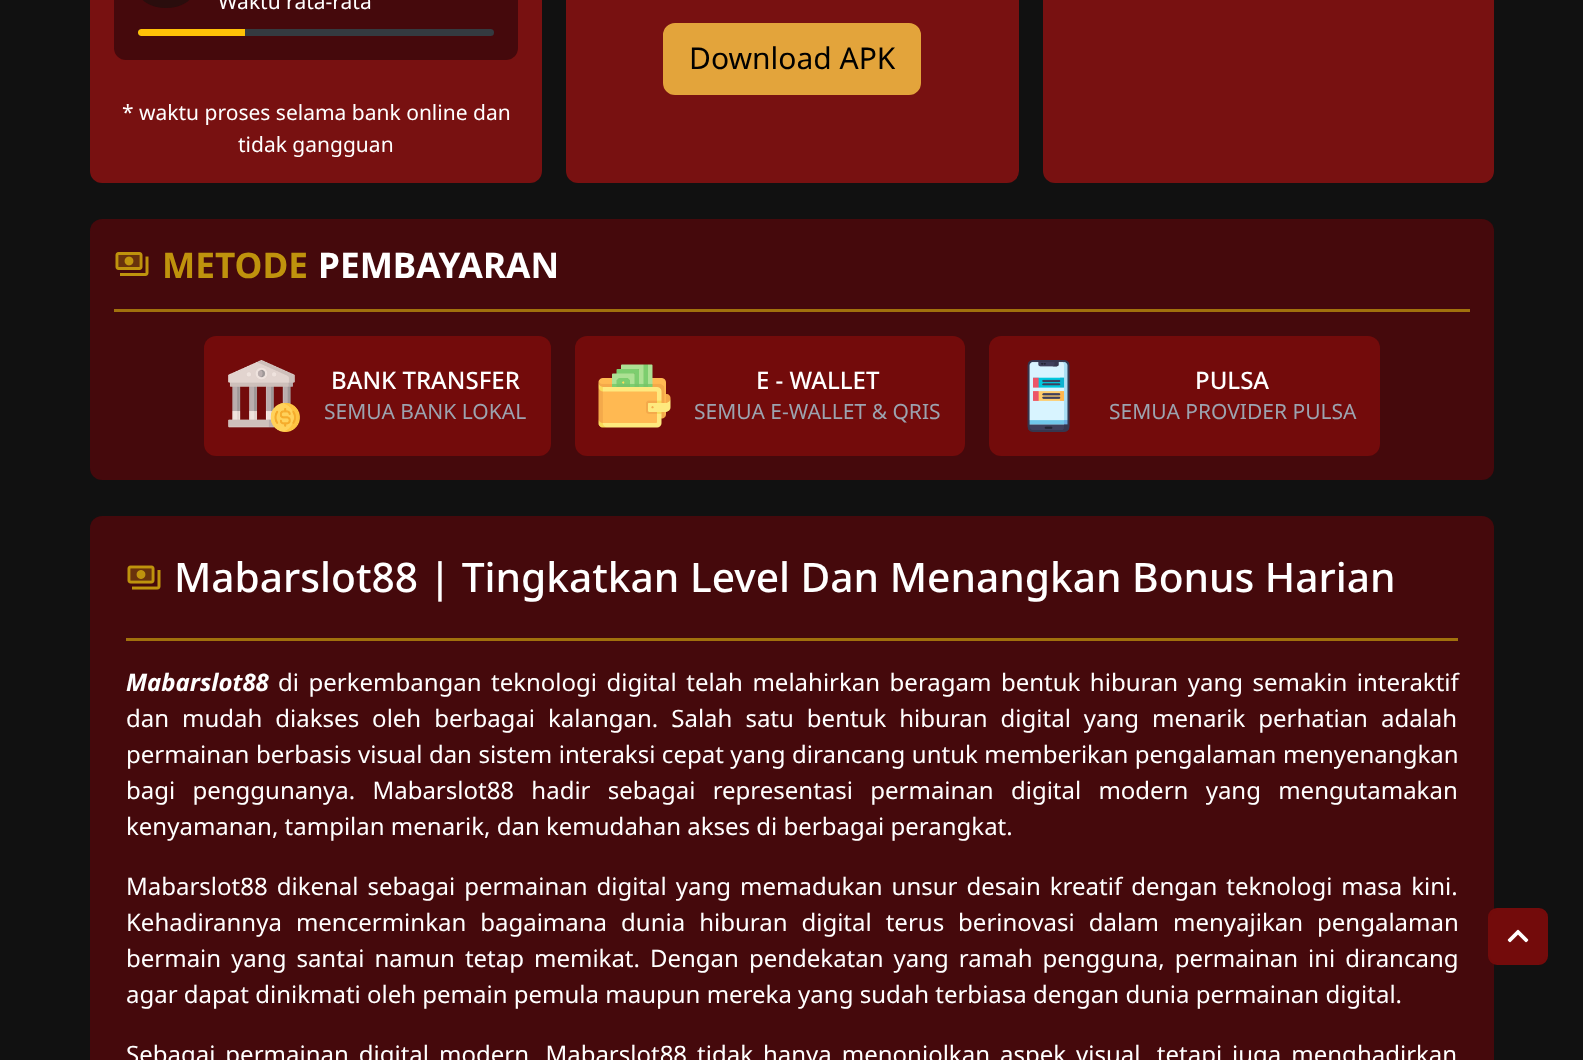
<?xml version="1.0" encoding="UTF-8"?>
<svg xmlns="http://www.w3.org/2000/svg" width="1583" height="1060">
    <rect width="100%" height="100%" fill="#111111"/>
    <rect x="90" y="-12" width="452" height="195" rx="12" fill="#781111"/>
    <rect x="114" y="-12" width="404" height="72" rx="12" fill="#45090C"/>
    <rect x="138" y="-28" width="56" height="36" rx="28" fill="#2A0D0D"/>
    <text x="218" y="9" font-family="Noto Sans" font-size="21" fill="#FFFFFF">Waktu rata-rata</text>
    <rect x="138" y="29" width="356" height="7" rx="3.5" fill="#343A40"/>
    <path d="M 141.5 29 H 245 V 36 H 141.5 C 139.5 36 138 34.5 138 32.5 C 138 30.5 139.5 29 141.5 29 Z" fill="#FFC107"/>
    <text x="122" y="120" font-family="Noto Sans" font-size="21" fill="#FFFFFF">* waktu proses selama bank online dan</text>
    <text x="238" y="152" font-family="Noto Sans" font-size="21" fill="#FFFFFF">tidak gangguan</text>
    <rect x="566" y="-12" width="453" height="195" rx="12" fill="#781111"/>
    <rect x="664" y="24" width="256" height="70" rx="11" fill="#E3A43B" stroke="#E3A43B" stroke-width="2"/>
    <text x="689" y="69" font-family="Noto Sans" font-size="30" fill="#000000">Download APK</text>
    <rect x="1043" y="-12" width="451" height="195" rx="12" fill="#781111"/>
    <rect x="90" y="219" width="1404" height="261" rx="12" fill="#45090C"/>
    <image x="115" y="252" width="34" height="24" href="img_01.png"/>
    <text x="162" y="278" font-family="Noto Sans" font-size="35.25" font-weight="700" fill="#BF930D">METODE</text>
    <text x="318" y="278" font-family="Noto Sans" font-size="35.25" font-weight="700" fill="#FFFFFF">PEMBAYARAN</text>
    <rect x="114" y="309" width="1356" height="3" fill="#A1710D"/>
    <rect x="204" y="336" width="347" height="120" rx="12" fill="#730B0B"/>
    <image x="228" y="360" width="72" height="72" href="img_02.png"/>
    <text x="331" y="389" font-family="Noto Sans" font-size="24" font-weight="500" fill="#FFFFFF">BANK TRANSFER</text>
    <text x="324" y="419" font-family="Noto Sans" font-size="21" fill="#9CA3AF">SEMUA BANK LOKAL</text>
    <rect x="575" y="336" width="390" height="120" rx="12" fill="#730B0B"/>
    <image x="598" y="364" width="73" height="64" href="img_03.png"/>
    <text x="756" y="389" font-family="Noto Sans" font-size="24" font-weight="500" fill="#FFFFFF">E - WALLET</text>
    <text x="694" y="419" font-family="Noto Sans" font-size="21" fill="#9CA3AF">SEMUA E-WALLET &amp; QRIS</text>
    <rect x="989" y="336" width="391" height="120" rx="12" fill="#730B0B"/>
    <image x="1027" y="360" width="43" height="72" href="img_04.png"/>
    <text x="1195" y="389" font-family="Noto Sans" font-size="24" font-weight="500" fill="#FFFFFF">PULSA</text>
    <text x="1109" y="419" font-family="Noto Sans" font-size="21" fill="#9CA3AF">SEMUA PROVIDER PULSA</text>
    <rect x="90" y="516" width="1404" height="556" rx="12" fill="#45090C"/>
    <image x="127" y="565" width="34" height="25" href="img_05.png"/>
    <text x="174" y="592" font-family="Noto Sans" font-size="40.7" font-weight="500" fill="#FFFFFF">Mabarslot88 | Tingkatkan Level Dan Menangkan Bonus Harian</text>
    <rect x="126" y="638" width="1332" height="3" fill="#A1710D"/>
    <text x="126" y="691" font-family="Noto Sans" font-size="24" font-weight="700" font-style="italic" fill="#FFFFFF">Mabarslot88</text>
    <text x="278" y="691" word-spacing="3.25" font-family="Noto Sans" font-size="24" fill="#FFFFFF">di perkembangan</text>
    <text x="491" y="691" word-spacing="3.25" font-family="Noto Sans" font-size="24" fill="#FFFFFF">teknologi digital telah melahirkan beragam bentuk hiburan yang semakin interaktif</text>
    <text font-family="Noto Sans" font-size="24" fill="#FFFFFF">
        <tspan x="126" y="727" word-spacing="6.75">dan mudah diakses oleh berbagai kalangan. Salah satu bentuk hiburan digital yang menarik perhatian adalah</tspan>
        <tspan x="126" y="763" word-spacing="0.25">permainan berbasis visual dan sistem interaksi cepat yang dirancang untuk memberikan pengalaman menyenangkan</tspan>
        <tspan x="126" y="799" word-spacing="11">bagi penggunanya. Mabarslot88 hadir sebagai representasi permainan digital modern yang mengutamakan</tspan>
        <tspan x="126" y="835">kenyamanan, tampilan menarik, dan kemudahan akses di berbagai perangkat.</tspan>
    </text>
    <text font-family="Noto Sans" font-size="24" fill="#FFFFFF">
        <tspan x="126" y="895" word-spacing="2.75">Mabarslot88 dikenal sebagai permainan digital yang memadukan unsur desain kreatif dengan teknologi masa kini.</tspan>
        <tspan x="126" y="931" word-spacing="7.75">Kehadirannya mencerminkan bagaimana dunia hiburan digital terus berinovasi dalam menyajikan pengalaman</tspan>
        <tspan x="126" y="967" word-spacing="3.75">bermain yang santai namun tetap memikat. Dengan pendekatan yang ramah pengguna, permainan ini dirancang</tspan>
        <tspan x="126" y="1003">agar dapat dinikmati oleh pemain pemula maupun mereka yang sudah terbiasa dengan dunia permainan digital.</tspan>
    </text>
    <text x="126" y="1063" word-spacing="3.75" font-family="Noto Sans" font-size="24" fill="#FFFFFF">Sebagai permainan digital modern, Mabarslot88 tidak hanya menonjolkan aspek visual, tetapi juga menghadirkan</text>
    <rect x="1489" y="909" width="58" height="55" rx="8" fill="#730B0B" stroke="#730B0B" stroke-width="2"/>
    <image x="1507" y="929" width="22" height="14" href="img_06.png"/>
</svg>
